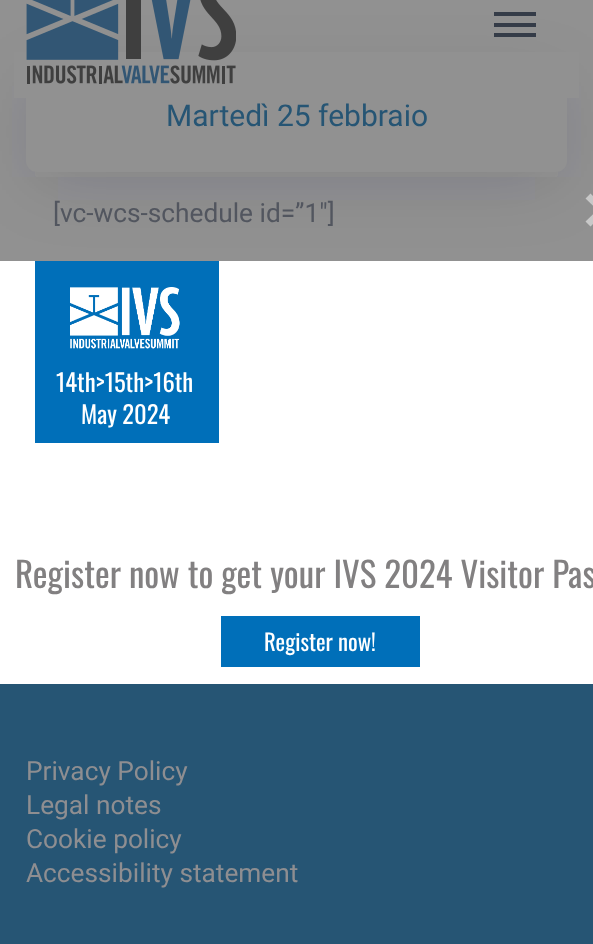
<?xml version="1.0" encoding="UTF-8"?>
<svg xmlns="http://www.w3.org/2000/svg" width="593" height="944">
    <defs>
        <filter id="blur1" x="-50%" y="-200%" width="200%" height="500%"><feGaussianBlur stdDeviation="35"/></filter>
    </defs>
    <rect width="100%" height="100%" fill="#919191"/>
    <rect x="35" y="86" width="523" height="91" rx="2" fill="#2A3342" fill-opacity="0.15" filter="url(#blur1)"/>
    <rect x="26" y="63" width="541" height="109" rx="11" fill="#919191"/>
    <rect x="14" y="52" width="565" height="46" fill="#919191"/>
    <image x="26" y="0" width="210" height="84" href="img_01.png"/>
    <rect x="494" y="12" width="42" height="4" fill="#353C48"/>
    <rect x="494" y="23" width="42" height="4" fill="#353C48"/>
    <rect x="494" y="33" width="42" height="4" fill="#353C48"/>
    <text x="166" y="126" font-family="Roboto" font-size="30" fill="#265574">Martedì 25 febbraio</text>
    <text x="53" y="222" font-family="Roboto" font-size="26.25" fill="#52565F">[vc-wcs-schedule id=”1″]</text>
    <rect x="0" y="684" width="593" height="260" fill="#265574"/>
    <text font-family="Roboto" font-size="26.25" fill="#8E8E91">
        <tspan x="26" y="780">Privacy Policy</tspan>
        <tspan x="26" y="814">Legal notes</tspan>
        <tspan x="26" y="848">Cookie policy</tspan>
        <tspan x="26" y="882">Accessibility statement</tspan>
    </text>
    <path d="M 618.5 198 L 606.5 210 L 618.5 222 L 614 226.5 L 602 214.5 L 590.5 226.5 L 585.5 221.5 L 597.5 210 L 585.5 198.5 L 590.5 193.5 L 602 205.5 L 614 193.5 Z" fill="#C8C8C8"/>
    <rect x="0" y="261" width="593" height="423" fill="#FFFFFF"/>
    <rect x="35" y="261" width="184" height="182" fill="#006FB9"/>
    <image x="70" y="287" width="110" height="62" href="img_02.png"/>
    <text x="56" y="392" font-family="Oswald" font-size="24.5" fill="#FFFFFF">14th&gt;15th&gt;16th</text>
    <text x="81" y="424" font-family="Oswald" font-size="24.5" fill="#FFFFFF">May 2024</text>
    <text x="15" y="588" font-family="Oswald" font-size="35" fill="#828081">Register now to get your IVS 2024 Visitor Pas</text>
    <rect x="221" y="616" width="199" height="51" fill="#006FB9"/>
    <text x="264" y="651" font-family="Oswald" font-size="22.75" fill="#FFFFFF">Register now!</text>
</svg>
